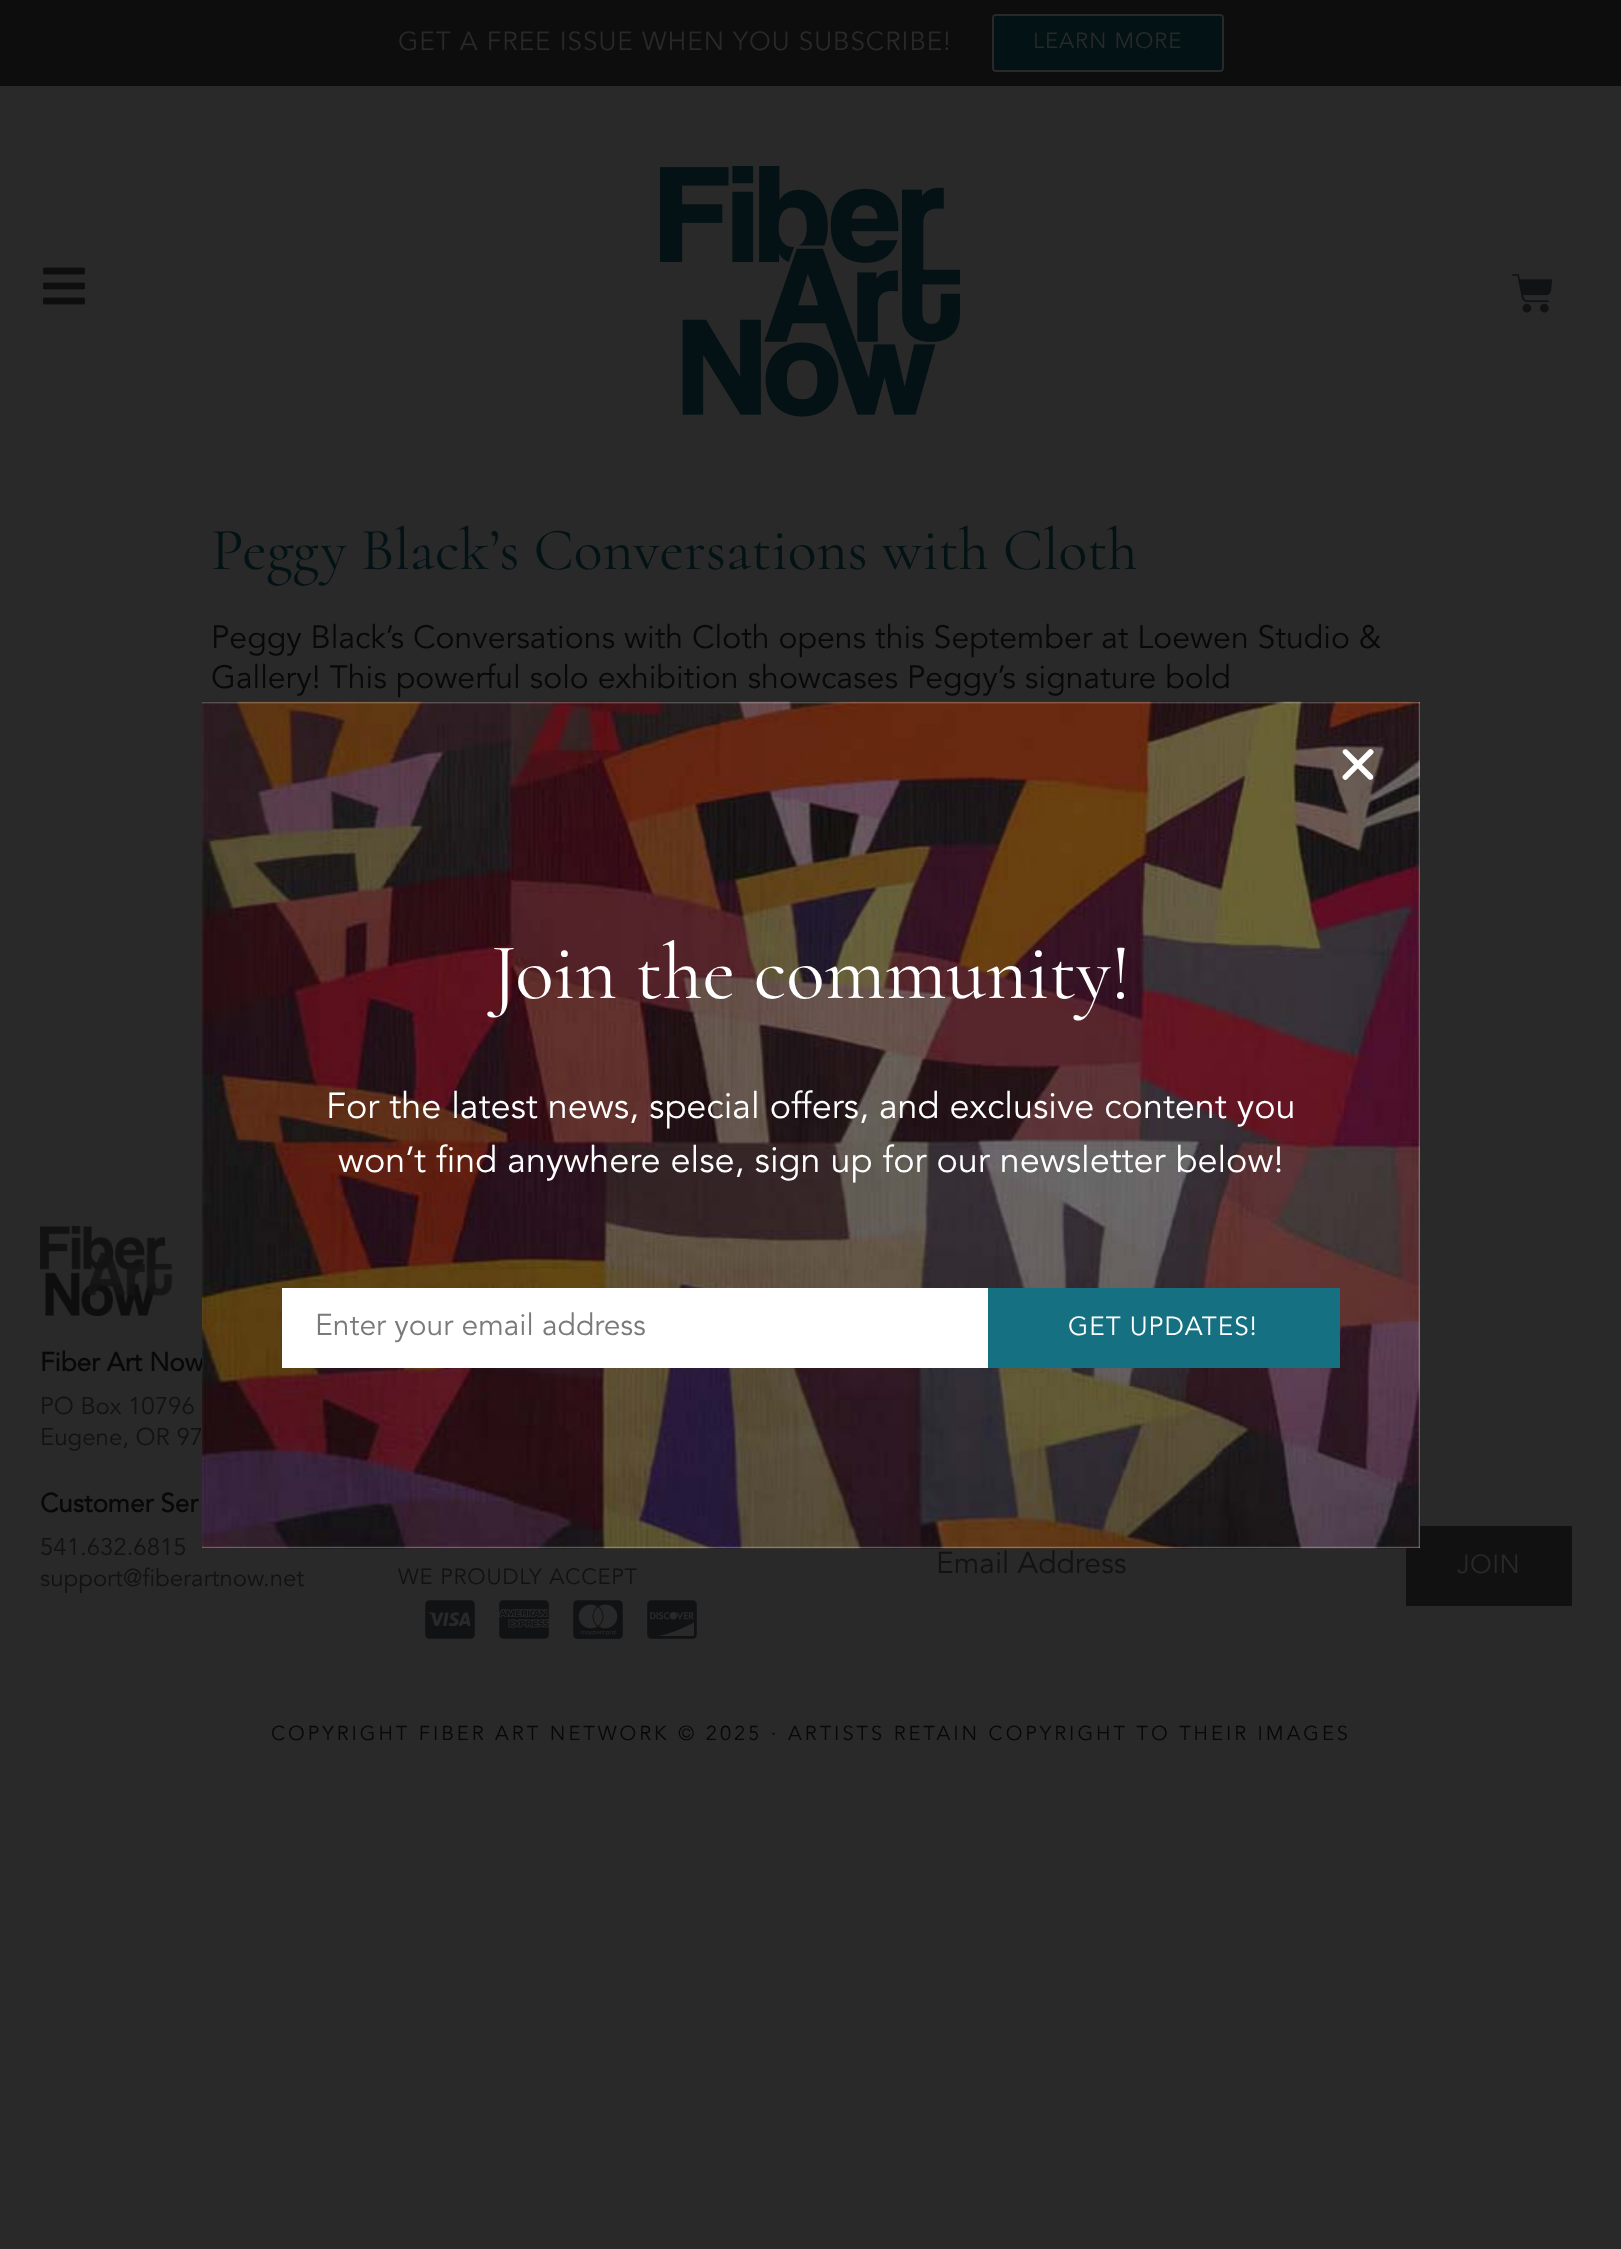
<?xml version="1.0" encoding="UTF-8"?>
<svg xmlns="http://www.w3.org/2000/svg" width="1621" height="2249">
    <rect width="100%" height="100%" fill="#292929"/>
    <rect x="0" y="0" width="1621" height="86" fill="#0D0D0D"/>
    <text x="398" y="50" font-family="Avenir" font-size="26" letter-spacing="1" fill="#292929">GET A FREE ISSUE WHEN YOU SUBSCRIBE!</text>
    <rect x="993" y="15" width="230" height="56" rx="3" fill="#031215" stroke="#292929" stroke-width="2"/>
    <text x="1033" y="48" font-family="Avenir" font-size="22" letter-spacing="1" fill="#292929">LEARN MORE</text>
    <image x="43" y="267" width="42" height="38" href="img_01.png"/>
    <image x="660" y="166" width="300" height="251" href="img_02.png"/>
    <image x="1512" y="274" width="41" height="39" href="img_03.png"/>
    <text x="211" y="569" font-family="Cormorant" font-size="60" fill="#031215">Peggy Black’s Conversations with Cloth</text>
    <text font-family="Avenir" font-size="32" fill="#080808">
        <tspan x="211" y="648">Peggy Black’s Conversations with Cloth opens this September at Loewen Studio &amp;</tspan>
        <tspan x="211" y="688">Gallery! This powerful solo exhibition showcases Peggy’s signature bold</tspan>
    </text>
    <text x="40" y="1371" font-family="Avenir" font-size="26" font-weight="700" fill="#080808">Fiber Art Now</text>
    <rect x="1406" y="1526" width="166" height="80" fill="#111111"/>
    <rect x="202" y="702" width="1218" height="846" fill="#FFFFFF"/>
    <image x="202" y="701" width="1218" height="848" href="img_04.png"/>
    <image x="1342" y="749" width="32" height="31" href="img_05.png"/>
    <text x="491" y="998" font-family="Cormorant" font-size="80" fill="#FFFFFF">Join the community!</text>
    <text x="326" y="1118" font-family="Avenir" font-size="36" fill="#FFFFFF">For the latest news, special offers, and exclusive content you</text>
    <text x="338" y="1172" font-family="Avenir" font-size="36" fill="#FFFFFF">won’t find anywhere else, sign up for our newsletter below!</text>
    <rect x="282" y="1288" width="706" height="80" fill="#FFFFFF"/>
    <text x="315" y="1335" font-family="Avenir" font-size="30" fill="#797A7C">Enter your email address</text>
    <rect x="988" y="1288" width="352" height="80" fill="#157082"/>
    <text x="1068" y="1335" font-family="Avenir" font-size="26" letter-spacing="1" fill="#FFFFFF">GET UPDATES!</text>
    <image x="40" y="1226" width="132" height="90" href="img_06.png"/>
    <text font-family="Avenir" font-size="24" fill="#121212">
        <tspan x="40" y="1414">PO Box 10796</tspan>
        <tspan x="40" y="1445">Eugene, OR 97</tspan>
    </text>
    <text x="40" y="1512" font-family="Avenir" font-size="26" font-weight="700" fill="#080808">Customer Ser</text>
    <text font-family="Avenir" font-size="24" fill="#121212">
        <tspan x="40" y="1555">541.632.6815</tspan>
        <tspan x="40" y="1586">support@fiberartnow.net</tspan>
    </text>
    <text x="936" y="1573" font-family="Avenir" font-size="30" fill="#121212">Email Address</text>
    <text x="1457" y="1573" font-family="Avenir" font-size="26" letter-spacing="0.5" fill="#292929">JOIN</text>
    <text x="398" y="1584" font-family="Avenir" font-size="22" letter-spacing="0.75" fill="#121212">WE PROUDLY ACCEPT</text>
    <image x="425" y="1600" width="50" height="39" href="img_07.png"/>
    <image x="499" y="1600" width="50" height="39" href="img_08.png"/>
    <image x="573" y="1600" width="50" height="39" href="img_09.png"/>
    <image x="647" y="1600" width="50" height="39" href="img_10.png"/>
    <text x="271" y="1740" font-family="Avenir" font-size="20" letter-spacing="3" fill="#080808">COPYRIGHT FIBER ART NETWORK © 2025 · ARTISTS RETAIN COPYRIGHT TO THEIR IMAGES</text>
</svg>
